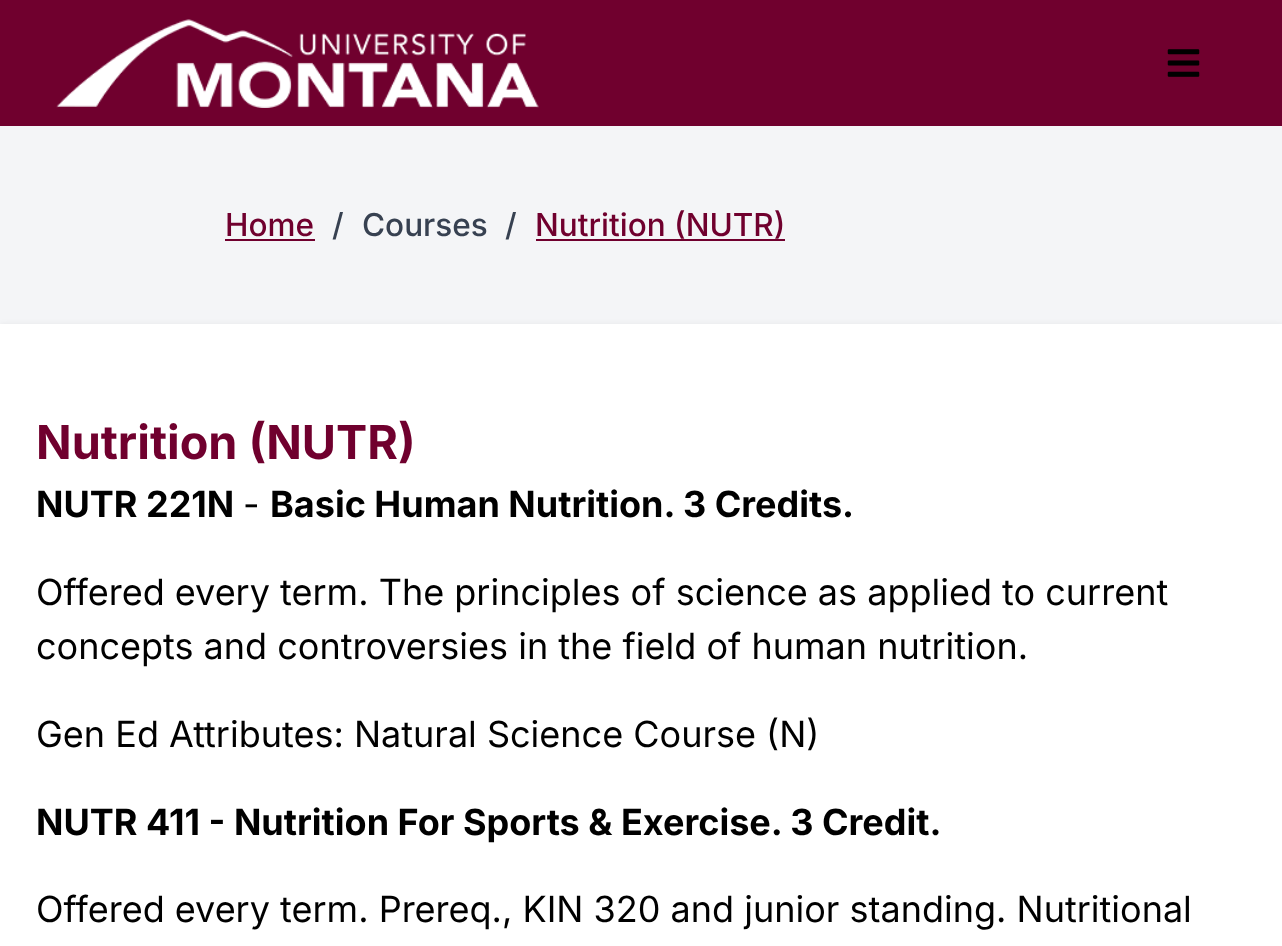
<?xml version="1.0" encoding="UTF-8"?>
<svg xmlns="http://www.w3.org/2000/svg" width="1282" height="946">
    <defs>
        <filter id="blur1" x="-50%" y="-200%" width="200%" height="500%"><feGaussianBlur stdDeviation="3.5"/></filter>
    </defs>
    <rect width="100%" height="100%" fill="#F4F5F7"/>
    <rect x="0" y="0" width="1282" height="126" fill="#70002E"/>
    <image x="56" y="19" width="483" height="89" href="img_01.png"/>
    <image x="1167" y="49" width="33" height="28" href="img_02.png"/>
    <text x="225" y="236" font-family="Inter" font-size="31.5" font-weight="500" fill="#70002E">Home</text>
    <rect x="225" y="239" width="90" height="2" fill="#70002E"/>
    <text x="332" y="236" font-family="Inter" font-size="31.5" font-weight="500" fill="#374151">/</text>
    <text x="362" y="236" font-family="Inter" font-size="31.5" font-weight="500" fill="#374151">Courses</text>
    <text x="505" y="236" font-family="Inter" font-size="31.5" font-weight="500" fill="#374151">/</text>
    <text x="535" y="236" font-family="Inter" font-size="31.5" font-weight="500" fill="#70002E">Nutrition (NUTR)</text>
    <rect x="536" y="239" width="249" height="2" fill="#70002E"/>
    <rect x="0" y="326" width="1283" height="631" fill="#000000" fill-opacity="0.1" filter="url(#blur1)"/>
    <rect x="0" y="324" width="1282" height="622" fill="#FFFFFF"/>
    <text x="36" y="459" font-family="Inter" font-size="46.75" font-weight="700" fill="#70002E">Nutrition (NUTR)</text>
    <text x="36" y="517" font-family="Inter" font-size="36" font-weight="700" fill="#000000">NUTR 221N</text>
    <text x="243" y="517" font-family="Inter" font-size="36" fill="#000000">-</text>
    <text x="270" y="517" font-family="Inter" font-size="36" font-weight="700" fill="#000000">Basic Human Nutrition. 3 Credits.</text>
    <text font-family="Inter" font-size="36" fill="#000000">
        <tspan x="36" y="605">Offered every term. The principles of science as applied to current</tspan>
        <tspan x="36" y="659">concepts and controversies in the field of human nutrition.</tspan>
    </text>
    <text x="36" y="747" font-family="Inter" font-size="36" fill="#000000">Gen Ed Attributes: Natural Science Course (N)</text>
    <text x="36" y="835" font-family="Inter" font-size="36" font-weight="700" fill="#000000">NUTR 411 - Nutrition For Sports &amp; Exercise. 3 Credit.</text>
    <text x="36" y="922" font-family="Inter" font-size="36" fill="#000000">Offered every term. Prereq., KIN 320 and junior standing. Nutritional</text>
</svg>
